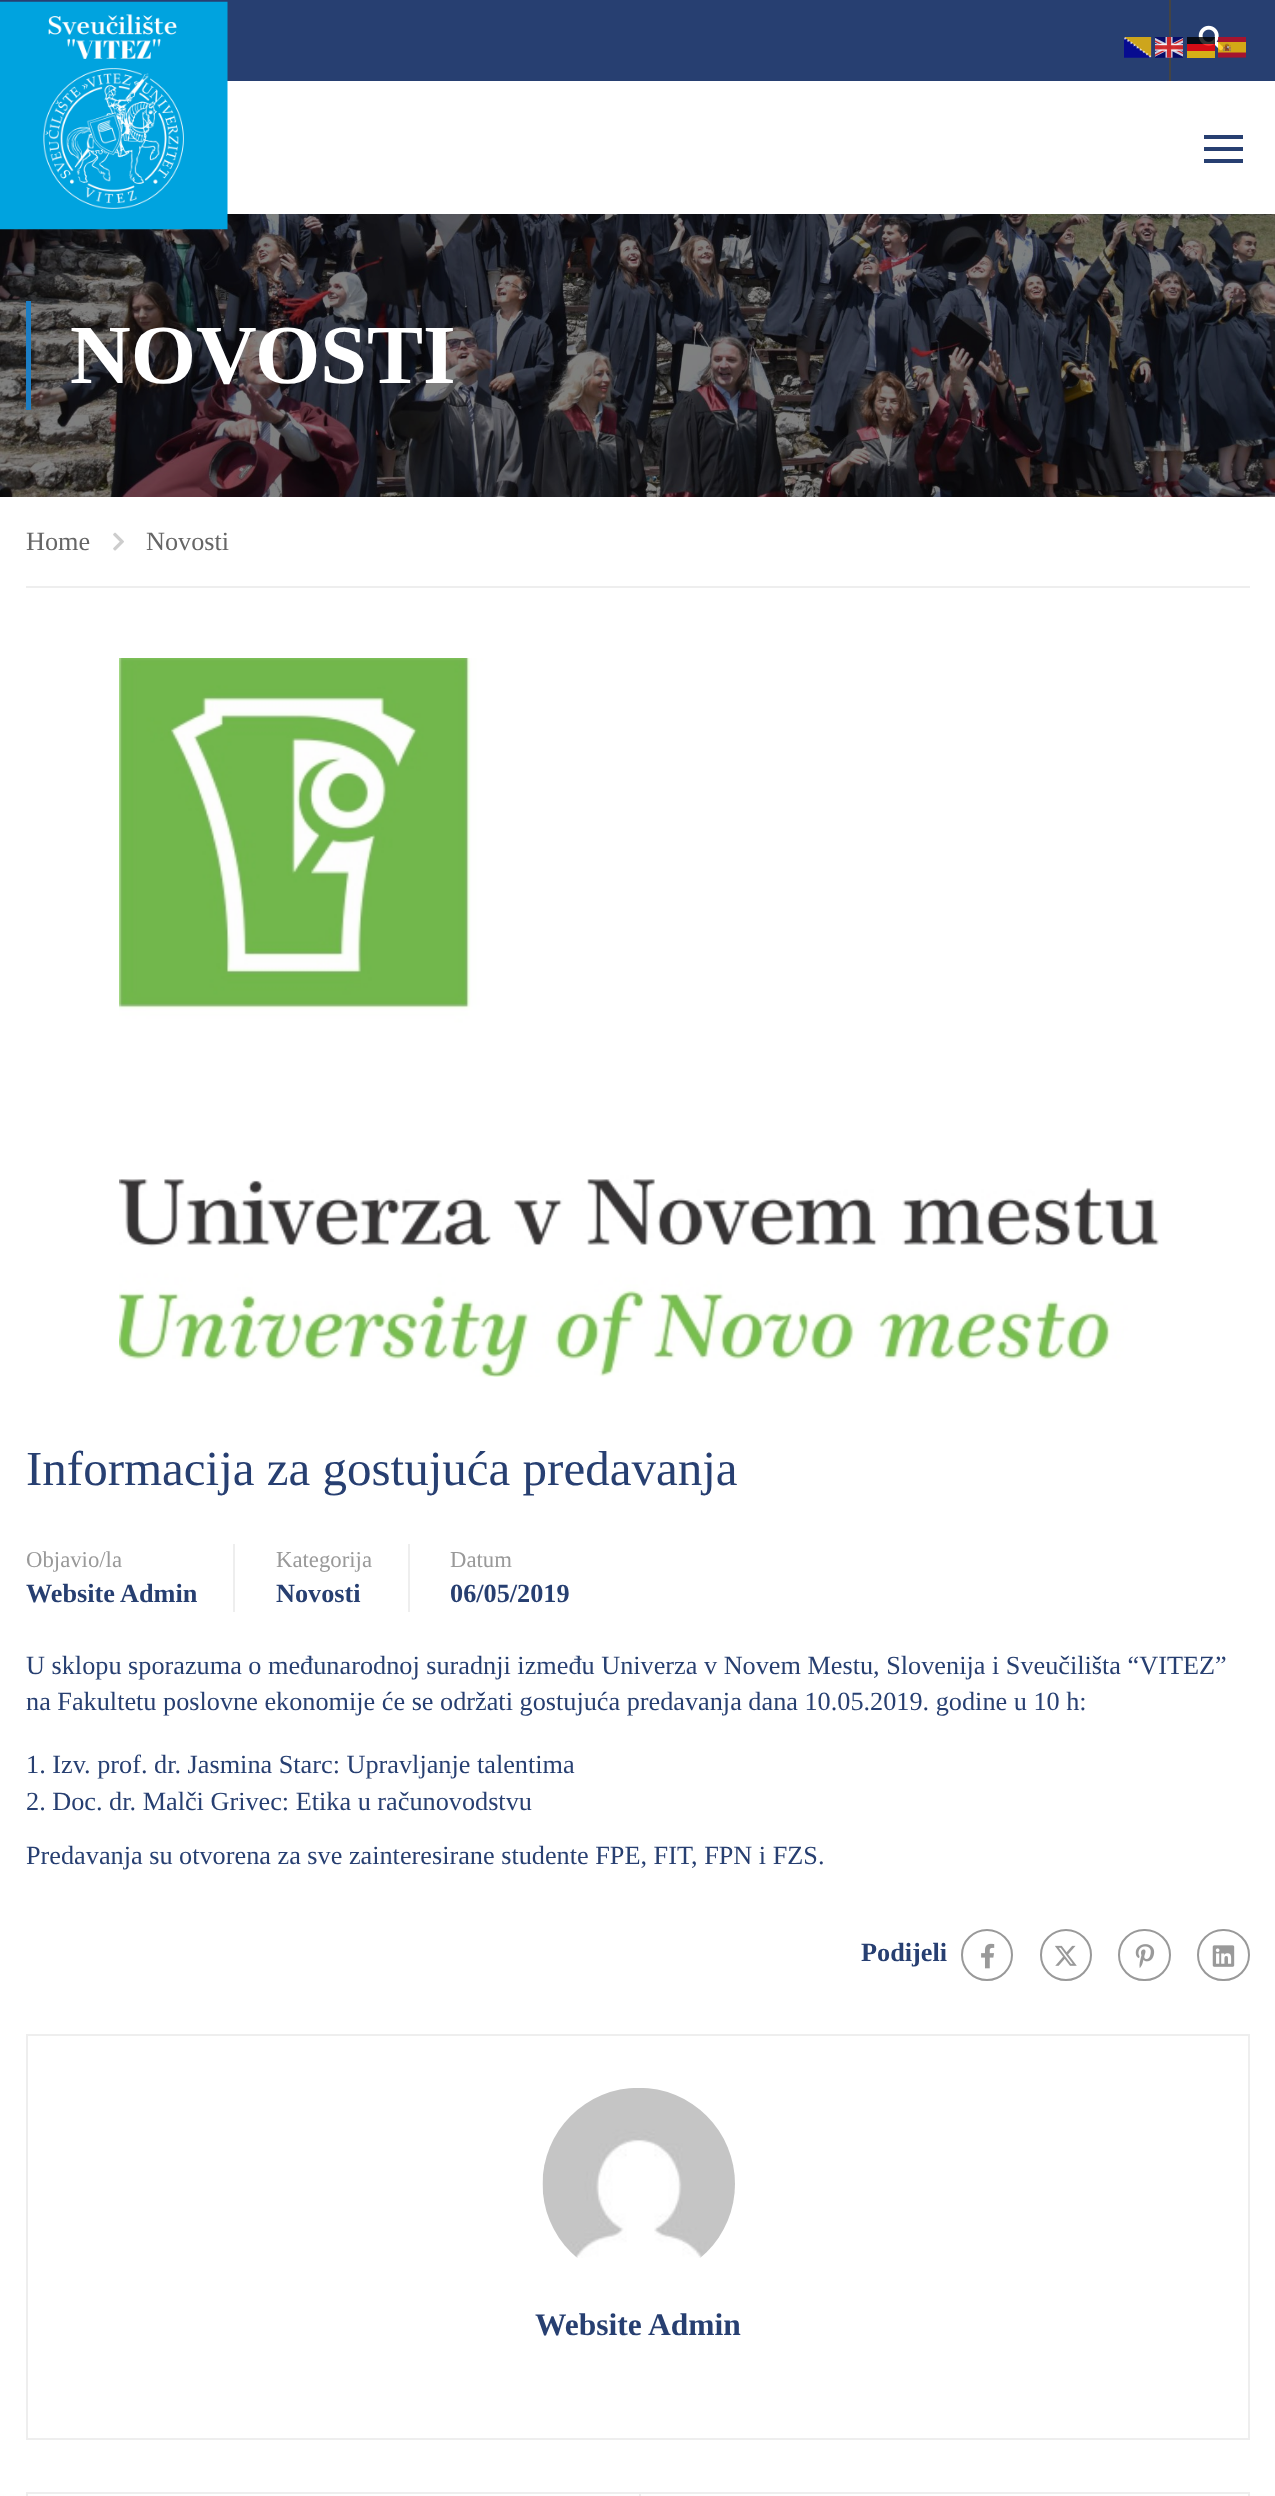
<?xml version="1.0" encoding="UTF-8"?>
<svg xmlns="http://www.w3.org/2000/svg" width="1275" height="2496">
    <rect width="100%" height="100%" fill="#FFFFFF"/>
    <rect x="0" y="0" width="1275" height="81" fill="#273F71"/>
    <image x="1124" y="37" width="28" height="21" href="img_01.png"/>
    <rect x="1169" y="0" width="2" height="81" fill="#444444"/>
    <image x="1155" y="37" width="28" height="21" href="img_02.png"/>
    <image x="1198" y="25" width="26" height="26" href="img_04.png"/>
    <rect x="1187" y="37" width="28" height="7" fill="#000000" fill-opacity="0.8"/>
    <image x="1218" y="37" width="28" height="21" href="img_03.png"/>
    <rect x="1187" y="44" width="28" height="7" fill="#FF0000" fill-opacity="0.8"/>
    <rect x="1187" y="51" width="28" height="7" fill="#D4B017"/>
    <image x="0" y="214" width="1275" height="283" href="img_06.png"/>
    <image x="0" y="1" width="228" height="229" href="img_05.png"/>
    <rect x="1204" y="135" width="39" height="4" fill="#273F71"/>
    <rect x="1204" y="147" width="39" height="4" fill="#273F71"/>
    <rect x="1204" y="159" width="39" height="4" fill="#273F71"/>
    <rect x="26" y="301" width="5" height="109" fill="#1D7EC3"/>
    <text x="70" y="383" font-family="Liberation Serif" font-size="84" font-weight="700" fill="#FFFFFF">NOVOSTI</text>
    <rect x="26" y="586" width="1224" height="2" fill="#EEEEEE"/>
    <text x="26" y="550" font-family="Liberation Serif" font-size="26.25" fill="#666666">Home</text>
    <image x="113" y="532" width="11" height="19" href="img_07.png"/>
    <text x="146" y="550" font-family="Liberation Serif" font-size="26.25" fill="#666666">Novosti</text>
    <image x="119" y="658" width="1040" height="719" href="img_08.png"/>
    <text x="26" y="1485" font-family="Liberation Serif" font-size="49" fill="#273F71">Informacija za gostujuća predavanja</text>
    <rect x="233" y="1544" width="2" height="68" fill="#EEEEEE"/>
    <text x="26" y="1567" font-family="Liberation Serif" font-size="22.75" fill="#999999">Objavio/la</text>
    <text x="26" y="1602" font-family="Liberation Serif" font-size="26.25" font-weight="700" fill="#273F71">Website Admin</text>
    <rect x="408" y="1544" width="2" height="68" fill="#EEEEEE"/>
    <text x="276" y="1567" font-family="Liberation Serif" font-size="22.75" fill="#999999">Kategorija</text>
    <text x="276" y="1602" font-family="Liberation Serif" font-size="26.25" font-weight="700" fill="#273F71">Novosti</text>
    <text x="450" y="1567" font-family="Liberation Serif" font-size="22.75" fill="#999999">Datum</text>
    <text x="450" y="1602" font-family="Liberation Serif" font-size="26.25" font-weight="700" fill="#273F71">06/05/2019</text>
    <text font-family="Liberation Serif" font-size="26.25" fill="#273F71">
        <tspan x="26" y="1674">U sklopu sporazuma o međunarodnoj suradnji između Univerza v Novem Mestu, Slovenija i Sveučilišta “VITEZ”</tspan>
        <tspan x="26" y="1710">na Fakultetu poslovne ekonomije će se održati gostujuća predavanja dana 10.05.2019. godine u 10 h:</tspan>
    </text>
    <text font-family="Liberation Serif" font-size="26.25" fill="#273F71">
        <tspan x="26" y="1773">1. Izv. prof. dr. Jasmina Starc: Upravljanje talentima</tspan>
        <tspan x="26" y="1810">2. Doc. dr. Malči Grivec: Etika u računovodstvu</tspan>
    </text>
    <text x="26" y="1864" font-family="Liberation Serif" font-size="26.25" fill="#273F71">Predavanja su otvorena za sve zainteresirane studente FPE, FIT, FPN i FZS.</text>
    <text x="861" y="1961" font-family="Liberation Serif" font-size="26.25" font-weight="700" fill="#273F71">Podijeli</text>
    <circle cx="987" cy="1955" r="25" fill="none" stroke="#999999" stroke-width="2"/>
    <image x="981" y="1943" width="14" height="26" href="img_09.png"/>
    <circle cx="1066" cy="1955" r="25" fill="none" stroke="#999999" stroke-width="2"/>
    <image x="1055" y="1945" width="22" height="21" href="img_10.png"/>
    <rect x="1119" y="1930" width="51" height="50" rx="25" fill="none" stroke="#999999" stroke-width="2"/>
    <image x="1135" y="1944" width="20" height="24" href="img_11.png"/>
    <rect x="1198" y="1930" width="51" height="50" rx="25" fill="none" stroke="#999999" stroke-width="2"/>
    <image x="1212" y="1945" width="23" height="22" href="img_12.png"/>
    <rect x="27" y="2035" width="1222" height="404" fill="none" stroke="#EEEEEE" stroke-width="2"/>
    <image x="542" y="2088" width="193" height="170" href="img_13.png"/>
    <text x="535" y="2335" font-family="Liberation Serif" font-size="31.5" font-weight="700" fill="#273F71">Website Admin</text>
    <rect x="27" y="2493" width="1222" height="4" fill="none" stroke="#EEEEEE" stroke-width="2"/>
    <rect x="639" y="2494" width="2" height="2" fill="#EEEEEE"/>
</svg>
